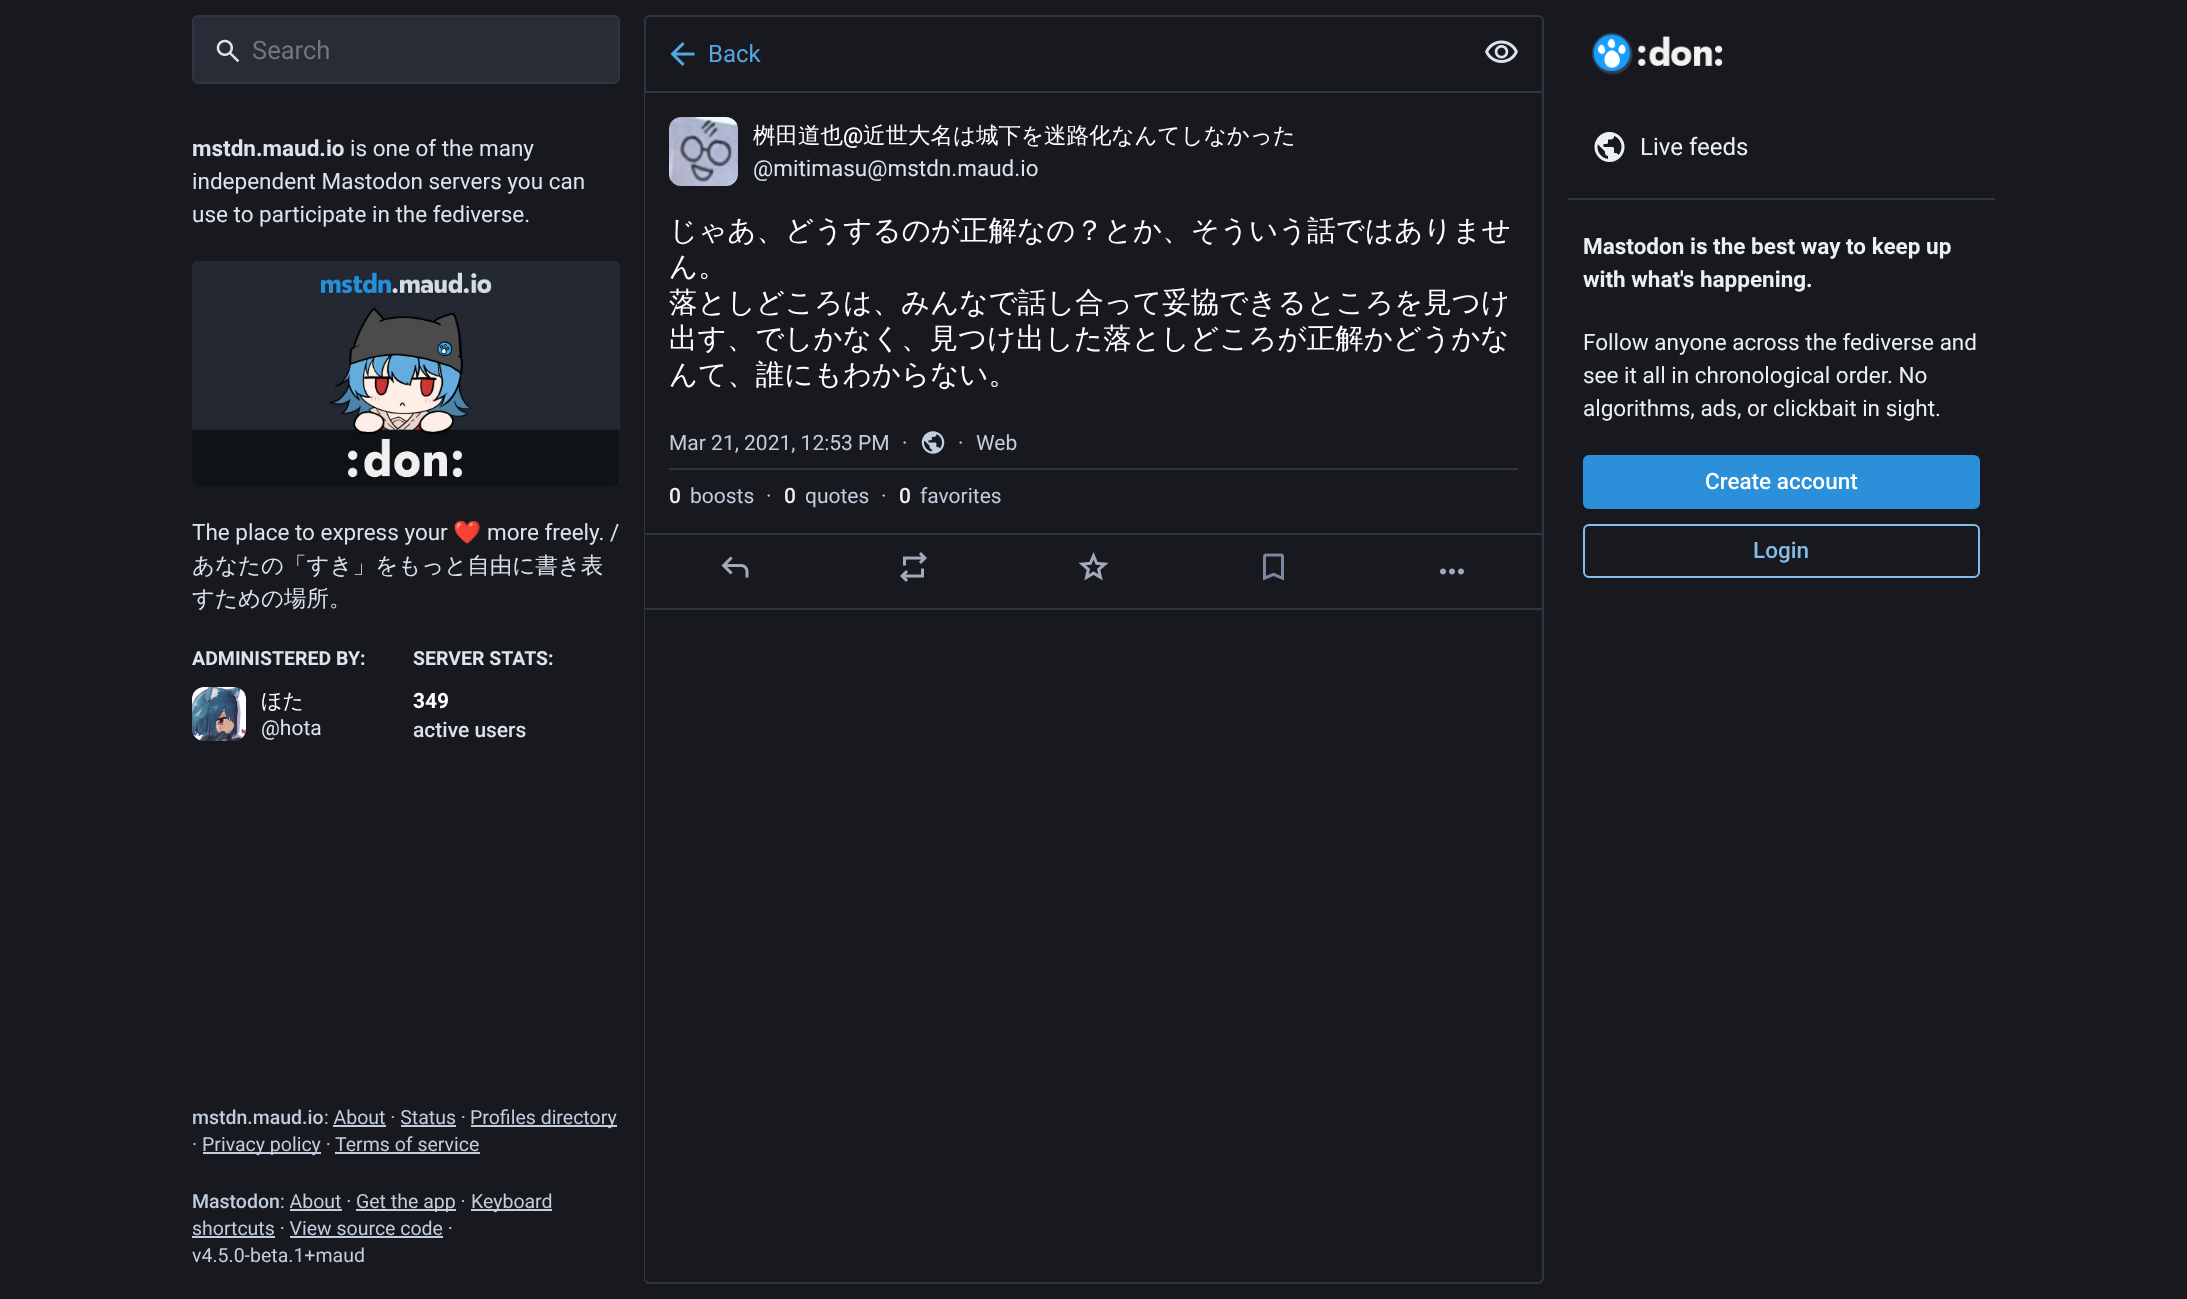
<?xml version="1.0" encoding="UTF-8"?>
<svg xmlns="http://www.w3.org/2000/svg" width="2187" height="1299">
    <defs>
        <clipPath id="clip1"><rect x="785" y="482" width="10" height="27"/></clipPath>
    </defs>
    <rect width="100%" height="100%" fill="#17191F"/>
    <rect x="193" y="16" width="426" height="67" rx="5" fill="#282C37" stroke="#313543" stroke-width="2"/>
    <image x="216" y="39" width="24" height="24" href="img_01.png"/>
    <text x="252" y="59" font-family="Roboto" font-size="25.5" fill="#757575">Search</text>
    <text x="192" y="156" font-family="Roboto" font-size="22.5" font-weight="700" fill="#DDE3EC">mstdn.maud.io</text>
    <text x="350" y="156" font-family="Roboto" font-size="22.5" fill="#DDE3EC">is one of the many</text>
    <text font-family="Roboto" font-size="22.5" fill="#DDE3EC">
        <tspan x="192" y="189">independent Mastodon servers you can</tspan>
        <tspan x="192" y="222">use to participate in the fediverse.</tspan>
    </text>
    <rect x="192" y="261" width="428" height="225" rx="6" fill="#282C37"/>
    <image x="192" y="261" width="428" height="225" href="img_02.png"/>
    <text x="192" y="540" font-family="Roboto" font-size="22.5" fill="#DDE3EC">The place to express your</text>
    <text x="453" y="540" font-family="Noto Color Emoji" font-size="22.5" fill="#DDE3EC">❤️</text>
    <text x="487" y="540" font-family="Roboto" font-size="22.5" fill="#DDE3EC">more freely. /</text>
    <text font-family="WenQuanYi Zen Hei" font-size="22.5" font-weight="500" fill="#DDE3EC">
        <tspan x="192" y="573">あなたの「すき」をもっと自由に書き表</tspan>
        <tspan x="192" y="606">すための場所。</tspan>
    </text>
    <text x="192" y="665" font-family="Roboto" font-size="19.5" font-weight="700" fill="#DDE3EC">ADMINISTERED BY:</text>
    <image x="192" y="687" width="54" height="54" href="img_03.png"/>
    <text x="261" y="708" font-family="WenQuanYi Zen Hei" font-size="21" font-weight="500" fill="#FFFFFF">ほた</text>
    <text x="261" y="735" font-family="Roboto" font-size="21" fill="#DDE3EC">@hota</text>
    <text x="413" y="665" font-family="Roboto" font-size="19.5" font-weight="700" fill="#DDE3EC">SERVER STATS:</text>
    <text x="413" y="708" font-family="Roboto" font-size="21" font-weight="700" fill="#FFFFFF">349</text>
    <text x="413" y="737" font-family="Roboto" font-size="21" font-weight="500" fill="#DDE3EC">active users</text>
    <text x="192" y="1124" font-family="Roboto" font-size="19.5" font-weight="500" fill="#C2CEDE">mstdn.maud.io</text>
    <text x="324" y="1124" font-family="Roboto" font-size="19.5" fill="#C2CEDE">: About · Status ·</text>
    <rect x="471" y="1125" width="146" height="2" fill="#C2CEDE"/>
    <text x="470" y="1124" font-family="Roboto" font-size="19.5" fill="#C2CEDE">Profiles directory</text>
    <rect x="333" y="1125" width="53" height="2" fill="#C2CEDE"/>
    <rect x="401" y="1125" width="55" height="2" fill="#C2CEDE"/>
    <text x="192" y="1151" font-family="Roboto" font-size="19.5" fill="#C2CEDE">·</text>
    <rect x="203" y="1152" width="118" height="2" fill="#C2CEDE"/>
    <text x="202" y="1151" font-family="Roboto" font-size="19.5" fill="#C2CEDE">Privacy policy ·</text>
    <text x="335" y="1151" font-family="Roboto" font-size="19.5" fill="#C2CEDE">Terms of service</text>
    <rect x="335" y="1152" width="145" height="2" fill="#C2CEDE"/>
    <text x="192" y="1208" font-family="Roboto" font-size="19.5" font-weight="500" fill="#C2CEDE">Mastodon</text>
    <text x="280" y="1208" font-family="Roboto" font-size="19.5" fill="#C2CEDE">: About ·</text>
    <rect x="356" y="1209" width="100" height="2" fill="#C2CEDE"/>
    <text x="356" y="1208" font-family="Roboto" font-size="19.5" fill="#C2CEDE">Get the app ·</text>
    <rect x="471" y="1209" width="81" height="2" fill="#C2CEDE"/>
    <text x="471" y="1208" font-family="Roboto" font-size="19.5" fill="#C2CEDE">Keyboard</text>
    <rect x="290" y="1209" width="52" height="2" fill="#C2CEDE"/>
    <text x="192" y="1235" font-family="Roboto" font-size="19.5" fill="#C2CEDE">shortcuts · View source code ·</text>
    <rect x="192" y="1236" width="83" height="2" fill="#C2CEDE"/>
    <rect x="290" y="1236" width="153" height="2" fill="#C2CEDE"/>
    <text x="192" y="1262" font-family="Roboto" font-size="19.5" fill="#C2CEDE">v4.5.0-beta.1+maud</text>
    <path d="M 650 16 H 1538 C 1541 16 1543 18 1543 21 V 92 H 645 V 21 C 645 18 647 16 650 16 Z" fill="none" stroke="#313543" stroke-width="2"/>
    <image x="670" y="42" width="25" height="24" href="img_04.png"/>
    <text x="708" y="62" font-family="Roboto" font-size="24" fill="#56A7E1">Back</text>
    <image x="1485" y="40" width="33" height="23" href="img_05.png"/>
    <path d="M 644 93 H 1544 V 1278 C 1544 1281 1541 1284 1538 1284 H 650 C 646 1284 644 1281 644 1278 Z M 645 93 H 1542 V 1278 C 1542 1280 1540 1282 1538 1282 H 650 C 647 1282 645 1280 645 1278 Z" fill="#313543" fill-rule="evenodd"/>
    <image x="669" y="117" width="69" height="69" href="img_06.png"/>
    <text x="753" y="143" font-family="WenQuanYi Zen Hei" font-size="22.5" font-weight="500" fill="#FFFFFF">桝田道也</text>
    <text x="843" y="143" font-family="Roboto" font-size="22.5" font-weight="500" fill="#FFFFFF">@</text>
    <text x="863" y="143" font-family="WenQuanYi Zen Hei" font-size="22.5" font-weight="500" fill="#FFFFFF">近世大名は城下を迷路化なんてしなかった</text>
    <text x="753" y="176" font-family="Roboto" font-size="22.5" fill="#DDE3EC">@mitimasu@mstdn.maud.io</text>
    <text font-family="WenQuanYi Zen Hei" font-size="28.5" font-weight="500" fill="#FFFFFF">
        <tspan x="669" y="240">じゃあ、どうするのが正解なの？とか、そういう話ではありませ</tspan>
        <tspan x="669" y="276">ん。</tspan>
        <tspan x="669" y="312">落としどころは、みんなで話し合って妥協できるところを見つけ</tspan>
        <tspan x="669" y="348">出す、でしかなく、見つけ出した落としどころが正解かどうかな</tspan>
        <tspan x="669" y="384">んて、誰にもわからない。</tspan>
    </text>
    <rect x="669" y="468" width="849" height="2" fill="#313543"/>
    <text x="669" y="450" font-family="Roboto" font-size="21" fill="#C2CEDE">Mar 21, 2021, 12:53 PM</text>
    <text x="902" y="450" font-family="Roboto" font-size="21" fill="#C2CEDE">·</text>
    <image x="921" y="431" width="24" height="23" href="img_07.png"/>
    <text x="958" y="450" font-family="Roboto" font-size="21" fill="#C2CEDE">·</text>
    <text x="976" y="450" font-family="Roboto" font-size="21" fill="#C2CEDE">Web</text>
    <text x="669" y="503" font-family="Roboto" font-size="21" font-weight="500" fill="#ECF0F4">0</text>
    <text x="690" y="503" font-family="Roboto" font-size="21" fill="#C2CEDE">boosts</text>
    <text x="766" y="503" font-family="Roboto" font-size="21" fill="#C2CEDE">·</text>
    <g clip-path="url(#clip1)">
        <text x="784" y="503" font-family="Roboto" font-size="21" font-weight="500" fill="#ECF0F4">0</text>
    </g>
    <text x="805" y="503" font-family="Roboto" font-size="21" fill="#C2CEDE">quotes</text>
    <text x="881" y="503" font-family="Roboto" font-size="21" fill="#C2CEDE">·</text>
    <text x="899" y="503" font-family="Roboto" font-size="21" font-weight="500" fill="#ECF0F4">0</text>
    <text x="920" y="503" font-family="Roboto" font-size="21" fill="#C2CEDE">favorites</text>
    <rect x="645" y="533" width="897" height="2" fill="#313543"/>
    <rect x="645" y="608" width="897" height="2" fill="#313543"/>
    <image x="721" y="556" width="28" height="22" href="img_08.png"/>
    <image x="900" y="552" width="27" height="30" href="img_09.png"/>
    <image x="1078" y="552" width="31" height="29" href="img_10.png"/>
    <image x="1263" y="553" width="21" height="28" href="img_11.png"/>
    <image x="1440" y="568" width="24" height="7" href="img_12.png"/>
    <image x="1592" y="32" width="131" height="43" href="img_13.png"/>
    <image x="1594" y="132" width="31" height="30" href="img_14.png"/>
    <text x="1640" y="155" font-family="Roboto" font-size="24" fill="#ECF0F4">Live feeds</text>
    <rect x="1568" y="198" width="427" height="2" fill="#313543"/>
    <text font-family="Roboto" font-size="22.5" font-weight="700" fill="#ECF0F4">
        <tspan x="1583" y="254">Mastodon is the best way to keep up</tspan>
        <tspan x="1583" y="287">with what's happening.</tspan>
    </text>
    <text font-family="Roboto" font-size="22.5" fill="#ECF0F4">
        <tspan x="1583" y="350">Follow anyone across the fediverse and</tspan>
        <tspan x="1583" y="383">see it all in chronological order. No</tspan>
        <tspan x="1583" y="416">algorithms, ads, or clickbait in sight.</tspan>
    </text>
    <rect x="1583" y="455" width="397" height="54" rx="6" fill="#2B90D9"/>
    <text x="1705" y="489" font-family="Roboto" font-size="22.5" font-weight="500" fill="#FFFFFF">Create account</text>
    <rect x="1584" y="525" width="395" height="52" rx="5" fill="none" stroke="#82BEE9" stroke-width="2"/>
    <text x="1753" y="558" font-family="Roboto" font-size="22.5" font-weight="500" fill="#82BEE9">Login</text>
</svg>
